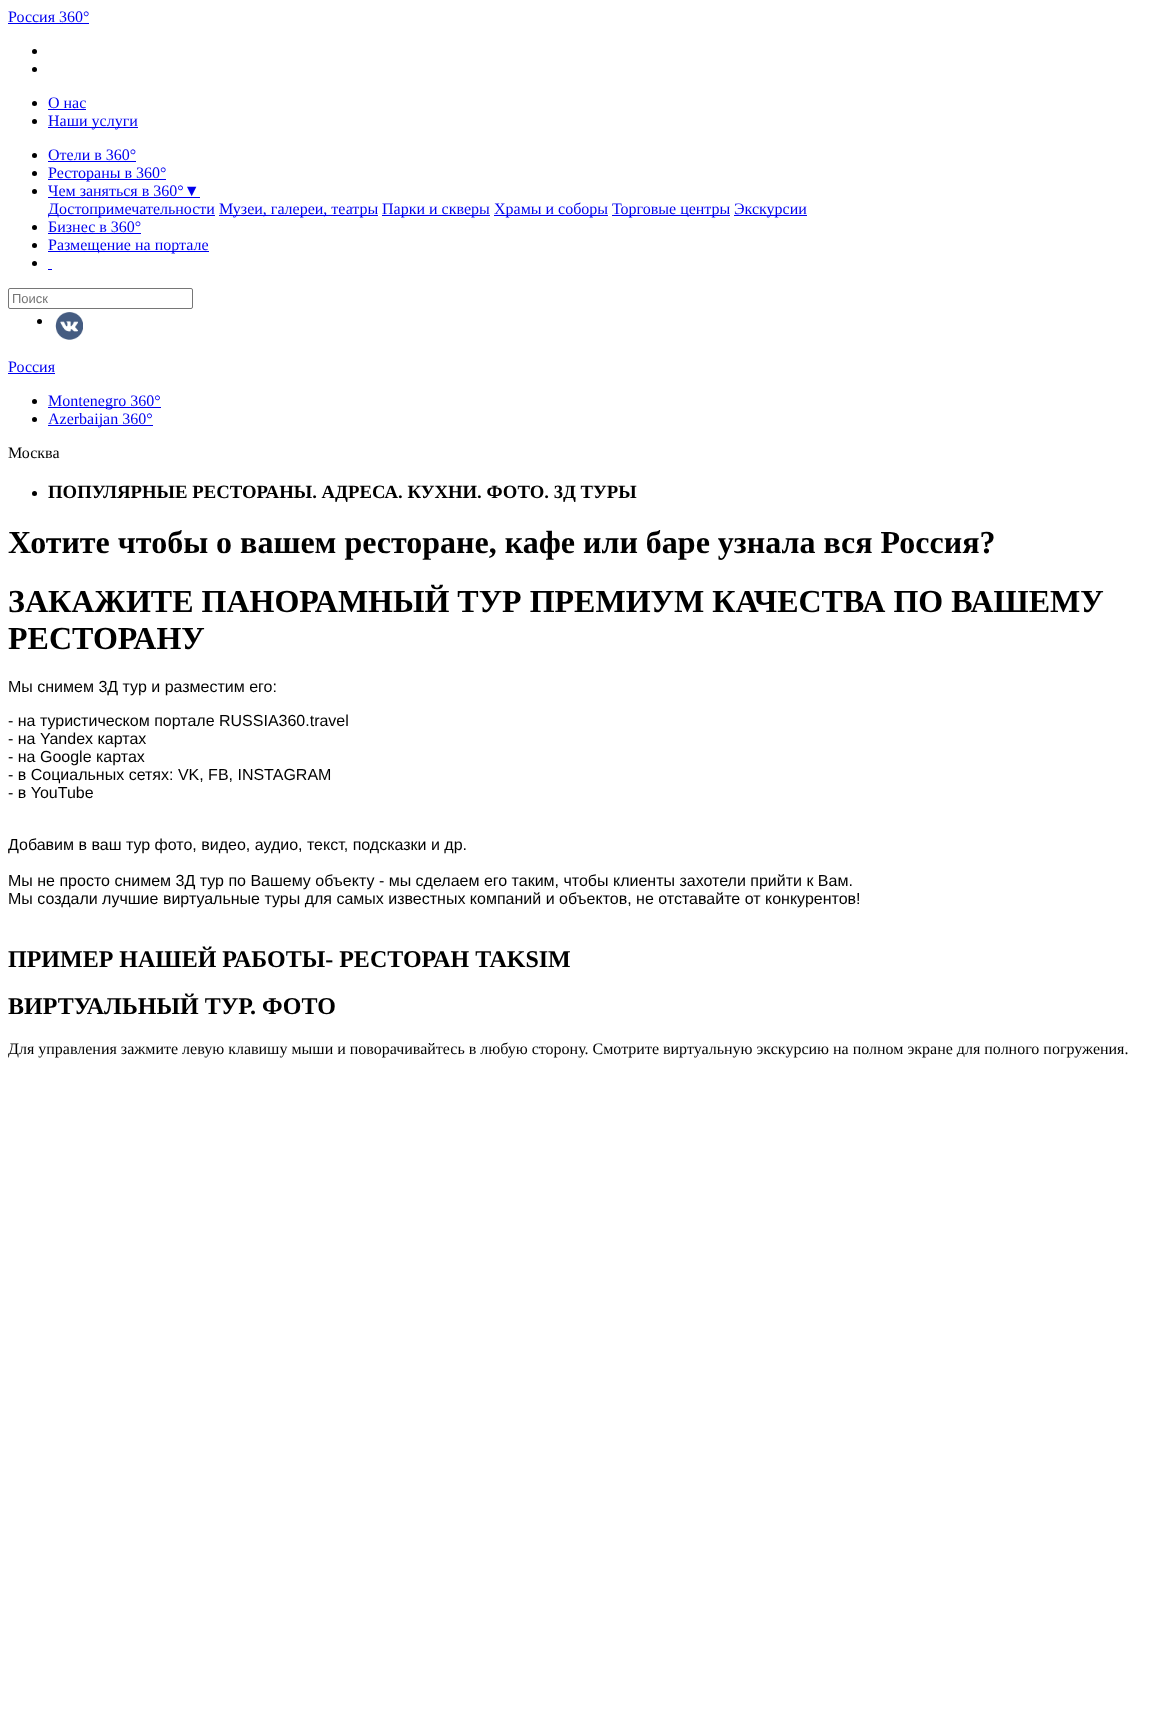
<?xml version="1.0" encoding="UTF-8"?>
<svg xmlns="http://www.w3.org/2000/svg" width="1159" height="1720">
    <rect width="100%" height="100%" fill="#FFFFFF"/>
    <text x="8" y="22" font-family="Liberation Serif" font-size="16" fill="#0000EE">Россия 360°</text>
    <rect x="8" y="23" width="81" height="1" fill="#0000EE"/>
    <circle cx="34.5" cy="51.5" r="2.5" fill="#000000"/>
    <circle cx="34.5" cy="69.5" r="2.5" fill="#000000"/>
    <circle cx="34.5" cy="103.5" r="2.5" fill="#000000"/>
    <text x="48" y="108" font-family="Liberation Serif" font-size="16" fill="#0000EE">О нас</text>
    <rect x="48" y="109" width="38" height="1" fill="#0000EE"/>
    <circle cx="34.5" cy="121.5" r="2.5" fill="#000000"/>
    <rect x="48" y="127" width="90" height="1" fill="#0000EE"/>
    <text x="48" y="126" font-family="Liberation Serif" font-size="16" fill="#0000EE">Наши услуги</text>
    <circle cx="34.5" cy="155.5" r="2.5" fill="#000000"/>
    <text x="48" y="160" font-family="Liberation Serif" font-size="16" fill="#0000EE">Отели в 360°</text>
    <rect x="48" y="161" width="88" height="1" fill="#0000EE"/>
    <circle cx="34.5" cy="173.5" r="2.5" fill="#000000"/>
    <rect x="48" y="179" width="118" height="1" fill="#0000EE"/>
    <text x="48" y="178" font-family="Liberation Serif" font-size="16" fill="#0000EE">Рестораны в 360°</text>
    <circle cx="34.5" cy="191.5" r="2.5" fill="#000000"/>
    <text x="48" y="196" font-family="Liberation Serif" font-size="16" fill="#0000EE">Чем заняться в 360°▼</text>
    <rect x="48" y="197" width="152" height="1" fill="#0000EE"/>
    <rect x="48" y="215" width="167" height="1" fill="#0000EE"/>
    <text x="48" y="214" font-family="Liberation Serif" font-size="16" fill="#0000EE">Достопримечательности</text>
    <rect x="219" y="215" width="159" height="1" fill="#0000EE"/>
    <text x="219" y="214" font-family="Liberation Serif" font-size="16" fill="#0000EE">Музеи, галереи, театры</text>
    <rect x="382" y="215" width="108" height="1" fill="#0000EE"/>
    <text x="382" y="214" font-family="Liberation Serif" font-size="16" fill="#0000EE">Парки и скверы</text>
    <rect x="494" y="215" width="114" height="1" fill="#0000EE"/>
    <text x="494" y="214" font-family="Liberation Serif" font-size="16" fill="#0000EE">Храмы и соборы</text>
    <rect x="612" y="215" width="118" height="1" fill="#0000EE"/>
    <text x="612" y="214" font-family="Liberation Serif" font-size="16" fill="#0000EE">Торговые центры</text>
    <rect x="734" y="215" width="73" height="1" fill="#0000EE"/>
    <text x="734" y="214" font-family="Liberation Serif" font-size="16" fill="#0000EE">Экскурсии</text>
    <circle cx="34.5" cy="227.5" r="2.5" fill="#000000"/>
    <text x="48" y="232" font-family="Liberation Serif" font-size="16" fill="#0000EE">Бизнес в 360°</text>
    <rect x="48" y="233" width="93" height="1" fill="#0000EE"/>
    <circle cx="34.5" cy="245.5" r="2.5" fill="#000000"/>
    <rect x="48" y="251" width="161" height="1" fill="#0000EE"/>
    <text x="48" y="250" font-family="Liberation Serif" font-size="16" fill="#0000EE">Размещение на портале</text>
    <circle cx="34.5" cy="263.5" r="2.5" fill="#000000"/>
    <rect x="48" y="269" width="4" height="1" fill="#0000EE"/>
    <rect x="8.5" y="288.5" width="184" height="20" rx="1.5" fill="none" stroke="#767676"/>
    <text x="12" y="303" font-family="Liberation Sans" font-size="13" fill="#757575">Поиск</text>
    <circle cx="39.5" cy="321.5" r="2.5" fill="#000000"/>
    <image x="55" y="312" width="28" height="28" href="img_01.png"/>
    <text x="8" y="372" font-family="Liberation Serif" font-size="16" fill="#0000EE">Россия</text>
    <rect x="8" y="373" width="47" height="1" fill="#0000EE"/>
    <circle cx="34.5" cy="401.5" r="2.5" fill="#000000"/>
    <rect x="48" y="407" width="113" height="1" fill="#0000EE"/>
    <text x="48" y="406" font-family="Liberation Serif" font-size="16" fill="#0000EE">Montenegro 360°</text>
    <circle cx="34.5" cy="419.5" r="2.5" fill="#000000"/>
    <rect x="48" y="425" width="105" height="1" fill="#0000EE"/>
    <text x="48" y="424" font-family="Liberation Serif" font-size="16" fill="#0000EE">Azerbaijan 360°</text>
    <text x="8" y="458" font-family="Liberation Serif" font-size="16" fill="#000000">Москва</text>
    <circle cx="34.5" cy="493.5" r="2.5" fill="#000000"/>
    <text x="48" y="498" font-family="Liberation Serif" font-size="18.75" font-weight="700" fill="#000000">ПОПУЛЯРНЫЕ РЕСТОРАНЫ. АДРЕСА. КУХНИ. ФОТО. 3Д ТУРЫ</text>
    <text font-family="Liberation Serif" font-size="32" font-weight="700" fill="#000000">
        <tspan x="8" y="553">Хотите чтобы о вашем ресторане, кафе или баре узнала вся Россия?</tspan>
        <tspan x="8" y="612">ЗАКАЖИТЕ ПАНОРАМНЫЙ ТУР ПРЕМИУМ КАЧЕСТВА ПО ВАШЕМУ</tspan>
        <tspan x="8" y="649">РЕСТОРАНУ</tspan>
    </text>
    <text x="8" y="692" font-family="Liberation Sans" font-size="16" fill="#000000">Мы снимем 3Д тур и разместим его:</text>
    <text font-family="Liberation Sans" font-size="16" fill="#000000">
        <tspan x="8" y="726">- на туристическом портале RUSSIA360.travel</tspan>
        <tspan x="8" y="744">- на Yandex картах</tspan>
        <tspan x="8" y="762">- на Google картах</tspan>
        <tspan x="8" y="780">- в Социальных сетях: VK, FB, INSTAGRAM</tspan>
        <tspan x="8" y="798">- в YouTube</tspan>
    </text>
    <text x="8" y="850" font-family="Liberation Sans" font-size="16" fill="#000000">Добавим в ваш тур фото, видео, аудио, текст, подсказки и др.</text>
    <text font-family="Liberation Sans" font-size="16" fill="#000000">
        <tspan x="8" y="886">Мы не просто снимем 3Д тур по Вашему объекту - мы сделаем его таким, чтобы клиенты захотели прийти к Вам.</tspan>
        <tspan x="8" y="904">Мы создали лучшие виртуальные туры для самых известных компаний и объектов, не отставайте от конкурентов!</tspan>
    </text>
    <text font-family="Liberation Serif" font-size="24" font-weight="700" fill="#000000">
        <tspan x="8" y="967">ПРИМЕР НАШЕЙ РАБОТЫ- РЕСТОРАН TAKSIM</tspan>
        <tspan x="8" y="1014">ВИРТУАЛЬНЫЙ ТУР. ФОТО</tspan>
    </text>
    <text x="8" y="1054" font-family="Liberation Serif" font-size="16" fill="#000000">Для управления зажмите левую клавишу мыши и поворачивайтесь в любую сторону. Смотрите виртуальную экскурсию на полном экране для полного погружения.</text>
</svg>
